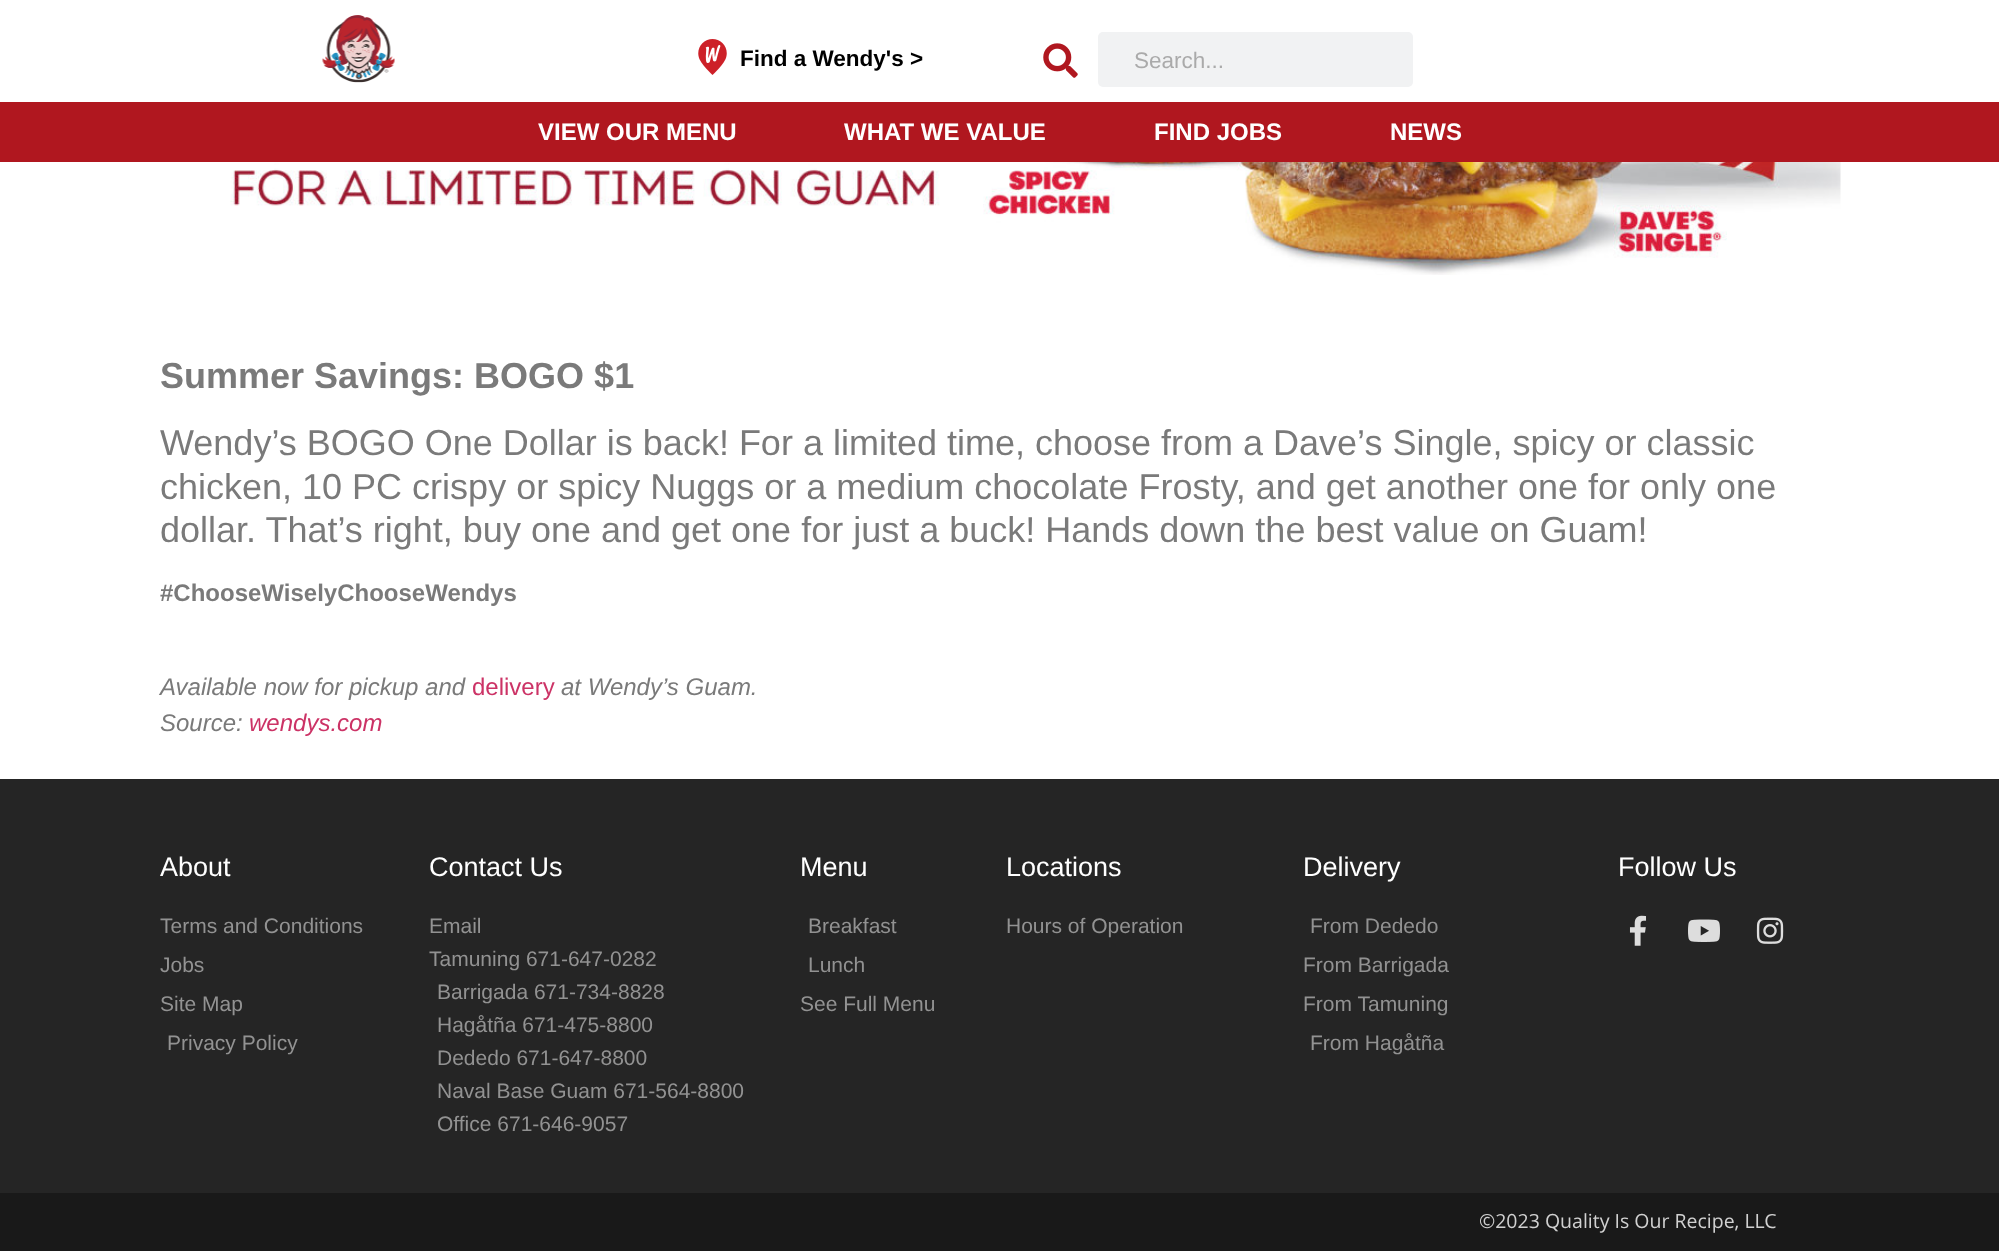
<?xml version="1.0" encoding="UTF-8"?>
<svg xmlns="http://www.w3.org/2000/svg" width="1999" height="1251">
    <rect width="100%" height="100%" fill="#FFFFFF"/>
    <image x="322" y="15" width="73" height="68" href="img_01.png"/>
    <image x="698" y="39" width="29" height="36" href="img_02.png"/>
    <text x="740" y="66" font-family="Liberation Sans" font-size="22.5" font-weight="700" fill="#000000">Find a Wendy's &gt;</text>
    <image x="1043" y="43" width="35" height="35" href="img_03.png"/>
    <rect x="1098" y="32" width="315" height="55" rx="5" fill="#F1F2F3"/>
    <text x="1134" y="68" font-family="Liberation Sans" font-size="22.5" fill="#AAAAAA">Search...</text>
    <rect x="0" y="102" width="1999" height="60" fill="#B0171F"/>
    <text x="538" y="140" font-family="Liberation Sans" font-size="24" font-weight="700" fill="#FFFFFF">VIEW OUR MENU</text>
    <text x="844" y="140" font-family="Liberation Sans" font-size="24" font-weight="700" fill="#FFFFFF">WHAT WE VALUE</text>
    <text x="1154" y="140" font-family="Liberation Sans" font-size="24" font-weight="700" fill="#FFFFFF">FIND JOBS</text>
    <text x="1390" y="140" font-family="Liberation Sans" font-size="24" font-weight="700" fill="#FFFFFF">NEWS</text>
    <image x="222" y="162" width="1619" height="113" href="img_04.png"/>
    <text x="160" y="388" font-family="Liberation Sans" font-size="36" font-weight="700" fill="#7A7A7A">Summer Savings: BOGO $1</text>
    <text font-family="Liberation Sans" font-size="36" fill="#7A7A7A">
        <tspan x="160" y="455">Wendy’s BOGO One Dollar is back! For a limited time, choose from a Dave’s Single, spicy or classic</tspan>
        <tspan x="160" y="499">chicken, 10 PC crispy or spicy Nuggs or a medium chocolate Frosty, and get another one for only one</tspan>
        <tspan x="160" y="542">dollar. That’s right, buy one and get one for just a buck! Hands down the best value on Guam!</tspan>
    </text>
    <text x="160" y="601" font-family="Liberation Sans" font-size="24" font-weight="700" fill="#7A7A7A">#ChooseWiselyChooseWendys</text>
    <text x="160" y="695" font-family="Liberation Sans" font-size="24" font-style="italic" fill="#7A7A7A">Available now for pickup and</text>
    <text x="472" y="695" font-family="Liberation Sans" font-size="24" fill="#CC3366">delivery</text>
    <text x="561" y="695" font-family="Liberation Sans" font-size="24" font-style="italic" fill="#7A7A7A">at Wendy’s Guam.</text>
    <text x="160" y="731" font-family="Liberation Sans" font-size="24" font-style="italic" fill="#7A7A7A">Source:</text>
    <text x="249" y="731" font-family="Liberation Sans" font-size="24" font-style="italic" fill="#CC3366">wendys.com</text>
    <rect x="0" y="779" width="1999" height="414" fill="#252525"/>
    <text x="160" y="876" font-family="Liberation Sans" font-size="27" fill="#FFFFFF">About</text>
    <text font-family="Liberation Sans" font-size="21" fill="#929292">
        <tspan x="160" y="933">Terms and Conditions</tspan>
        <tspan x="160" y="972">Jobs</tspan>
        <tspan x="160" y="1011">Site Map</tspan>
    </text>
    <text x="167" y="1050" font-family="Liberation Sans" font-size="21" fill="#929292">Privacy Policy</text>
    <text x="429" y="876" font-family="Liberation Sans" font-size="27" fill="#FFFFFF">Contact Us</text>
    <text font-family="Liberation Sans" font-size="21" fill="#929292">
        <tspan x="429" y="933">Email</tspan>
        <tspan x="429" y="966">Tamuning 671-647-0282</tspan>
    </text>
    <text font-family="Liberation Sans" font-size="21" fill="#929292">
        <tspan x="437" y="999">Barrigada 671-734-8828</tspan>
        <tspan x="437" y="1032">Hagåtña 671-475-8800</tspan>
        <tspan x="437" y="1065">Dededo 671-647-8800</tspan>
        <tspan x="437" y="1098">Naval Base Guam 671-564-8800</tspan>
        <tspan x="437" y="1131">Office 671-646-9057</tspan>
    </text>
    <text x="800" y="876" font-family="Liberation Sans" font-size="27" fill="#FFFFFF">Menu</text>
    <text font-family="Liberation Sans" font-size="21" fill="#929292">
        <tspan x="808" y="933">Breakfast</tspan>
        <tspan x="808" y="972">Lunch</tspan>
    </text>
    <text x="800" y="1011" font-family="Liberation Sans" font-size="21" fill="#929292">See Full Menu</text>
    <text x="1006" y="876" font-family="Liberation Sans" font-size="27" fill="#FFFFFF">Locations</text>
    <text x="1006" y="933" font-family="Liberation Sans" font-size="21" fill="#929292">Hours of Operation</text>
    <text x="1303" y="876" font-family="Liberation Sans" font-size="27" fill="#FFFFFF">Delivery</text>
    <text x="1310" y="933" font-family="Liberation Sans" font-size="21" fill="#929292">From Dededo</text>
    <text font-family="Liberation Sans" font-size="21" fill="#929292">
        <tspan x="1303" y="972">From Barrigada</tspan>
        <tspan x="1303" y="1011">From Tamuning</tspan>
    </text>
    <text x="1310" y="1050" font-family="Liberation Sans" font-size="21" fill="#929292">From Hagåtña</text>
    <text x="1618" y="876" font-family="Liberation Sans" font-size="27" fill="#FFFFFF">Follow Us</text>
    <image x="1629" y="915" width="18" height="31" href="img_05.png"/>
    <image x="1688" y="919" width="32" height="23" href="img_06.png"/>
    <image x="1756" y="917" width="28" height="27" href="img_07.png"/>
    <rect x="0" y="1193" width="1999" height="58" fill="#191919"/>
    <text x="1479" y="1228" font-family="Open Sans" font-size="19.5" fill="#D1D1D1">©2023 Quality Is Our Recipe, LLC</text>
</svg>
